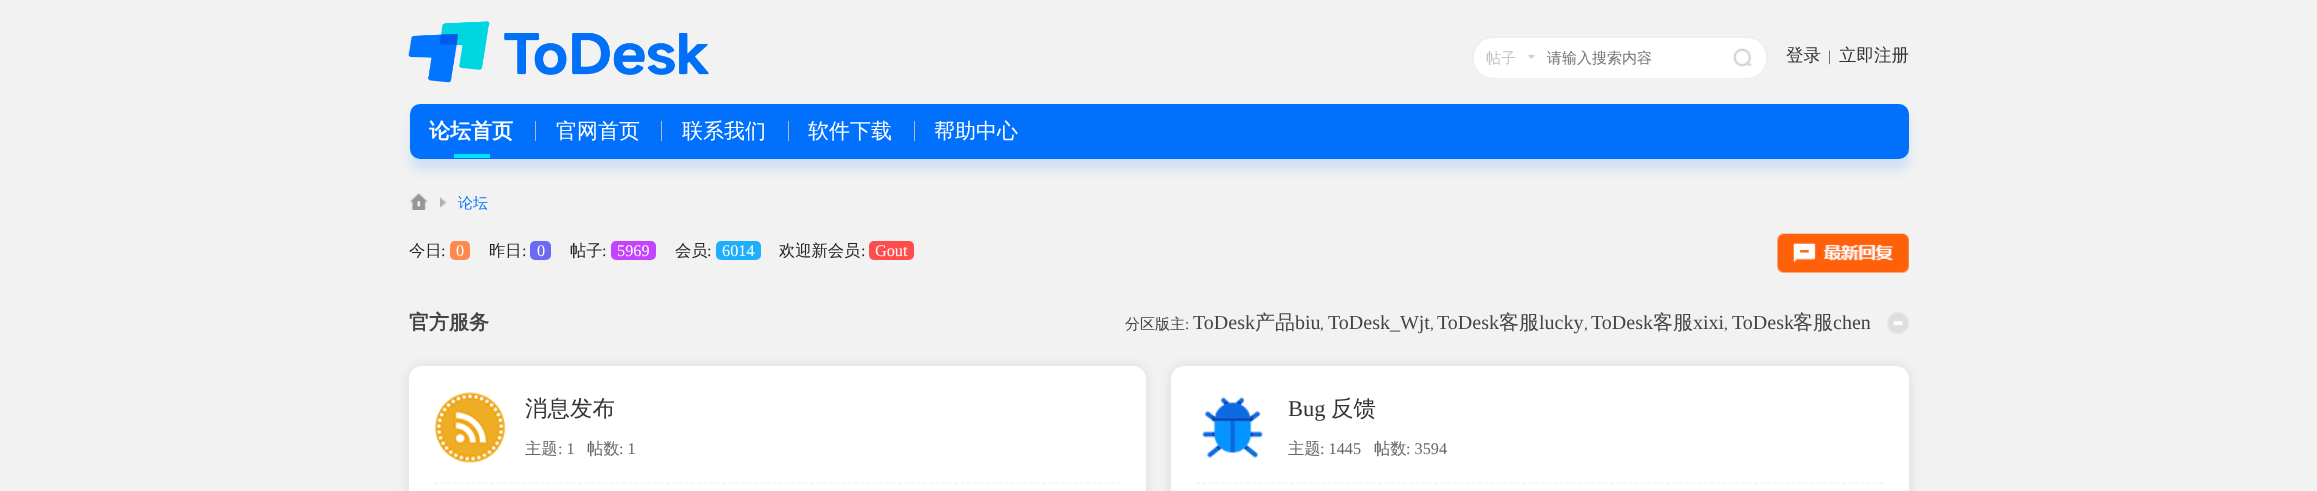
<?xml version="1.0" encoding="UTF-8"?>
<svg xmlns="http://www.w3.org/2000/svg" width="2317" height="491">
    <defs>
        <filter id="blur1" x="-50%" y="-200%" width="200%" height="500%"><feGaussianBlur stdDeviation="5.5"/></filter>
        <filter id="blur2" x="-50%" y="-200%" width="200%" height="500%"><feGaussianBlur stdDeviation="6"/></filter>
    </defs>
    <rect width="100%" height="100%" fill="#F2F2F2"/>
    <image x="408" y="21" width="301" height="62" href="img_01.png"/>
    <rect x="409" y="104" width="1500" height="1" fill="#EFEFEF"/>
    <path d="M 1493 38 H 1548 V 78 H 1493 C 1482.5 78 1474 69.5 1474 59 V 57 C 1474 46.5 1482.5 38 1493 38 Z" fill="#FFFFFF"/>
    <path d="M 1492 36 H 1548 V 79 H 1492 C 1481 79 1472 70 1472 59 V 56 C 1472 45 1481 36 1492 36 Z M 1492 38 H 1548 V 78 H 1502 C 1496 78 1490 78 1485 76 C 1467 68 1472 38 1492 38 Z" fill="#EFEFEF" fill-rule="evenodd"/>
    <text x="1486" y="63" font-family="WenQuanYi Zen Hei" font-size="15" font-weight="500" fill="#C4C4C4">帖子</text>
    <image x="1527" y="55" width="8" height="4" href="img_02.png"/>
    <path d="M 1548 38 H 1747 C 1757.5 38 1766 46.5 1766 57 V 59 C 1766 69.5 1757.5 78 1747 78 H 1548 Z" fill="#FFFFFF"/>
    <path d="M 1548 36 H 1748 C 1759 36 1768 45 1768 56 V 59 C 1768 70 1759 79 1748 79 H 1548 Z M 1548 38 H 1748 C 1758 38 1766 46 1766 56 V 59 C 1766 69 1758 78 1748 78 H 1548 Z" fill="#EFEFEF" fill-rule="evenodd"/>
    <text x="1547" y="63" font-family="WenQuanYi Zen Hei" font-size="15" font-weight="500" fill="#757575">请输入搜索内容</text>
    <image x="1733" y="48" width="19" height="19" href="img_03.png"/>
    <text x="1786" y="61" font-family="WenQuanYi Zen Hei" font-size="17.5" font-weight="500" fill="#333333">登录</text>
    <text x="1828" y="61" font-family="Liberation Serif" font-size="15" fill="#444444">|</text>
    <text x="1839" y="61" font-family="WenQuanYi Zen Hei" font-size="17.5" font-weight="500" fill="#333333">立即注册</text>
    <rect x="410" y="115" width="1499" height="55" rx="10" fill="#0171FD" fill-opacity="0.14" filter="url(#blur1)"/>
    <rect x="410" y="104" width="1499" height="55" rx="10" fill="#0171FD"/>
    <text x="429" y="138" font-family="WenQuanYi Zen Hei" font-size="21" font-weight="700" fill="#FFFFFF">论坛首页</text>
    <rect x="454" y="154" width="36" height="4" fill="#00E4FF"/>
    <rect x="535" y="121" width="1" height="20" fill="#B9B8B8"/>
    <text x="556" y="138" font-family="WenQuanYi Zen Hei" font-size="21" font-weight="500" fill="#FFFFFF">官网首页</text>
    <rect x="661" y="121" width="1" height="20" fill="#B9B8B8"/>
    <text x="682" y="138" font-family="WenQuanYi Zen Hei" font-size="21" font-weight="500" fill="#FFFFFF">联系我们</text>
    <rect x="788" y="121" width="1" height="20" fill="#B9B8B8"/>
    <text x="808" y="138" font-family="WenQuanYi Zen Hei" font-size="21" font-weight="500" fill="#FFFFFF">软件下载</text>
    <rect x="914" y="121" width="1" height="20" fill="#B9B8B8"/>
    <text x="934" y="138" font-family="WenQuanYi Zen Hei" font-size="21" font-weight="500" fill="#FFFFFF">帮助中心</text>
    <image x="410" y="193" width="18" height="17" href="img_04.png"/>
    <image x="440" y="197" width="7" height="11" href="img_05.png"/>
    <text x="458" y="208" font-family="WenQuanYi Zen Hei" font-size="15" font-weight="500" fill="#0175FF">论坛</text>
    <text x="409" y="256" font-family="WenQuanYi Zen Hei" font-size="16.25" font-weight="500" fill="#222222">今日</text>
    <text x="441" y="256" font-family="Liberation Serif" font-size="16.25" fill="#222222">:</text>
    <rect x="450" y="241" width="20" height="19" rx="5" fill="#FF884D"/>
    <text x="456" y="256" font-family="Liberation Serif" font-size="16.25" fill="#FFFFFF">0</text>
    <text x="489" y="256" font-family="WenQuanYi Zen Hei" font-size="16.25" font-weight="500" fill="#222222">昨日</text>
    <text x="522" y="256" font-family="Liberation Serif" font-size="16.25" fill="#222222">:</text>
    <rect x="530" y="241" width="21" height="19" rx="5" fill="#6C69F5"/>
    <text x="537" y="256" font-family="Liberation Serif" font-size="16.25" fill="#FFFFFF">0</text>
    <text x="570" y="256" font-family="WenQuanYi Zen Hei" font-size="16.25" font-weight="500" fill="#222222">帖子</text>
    <text x="602" y="256" font-family="Liberation Serif" font-size="16.25" fill="#222222">:</text>
    <rect x="611" y="241" width="45" height="19" rx="5" fill="#C343FF"/>
    <text x="617" y="256" font-family="Liberation Serif" font-size="16.25" fill="#FFFFFF">5969</text>
    <text x="675" y="256" font-family="WenQuanYi Zen Hei" font-size="16.25" font-weight="500" fill="#222222">会员</text>
    <text x="707" y="256" font-family="Liberation Serif" font-size="16.25" fill="#222222">:</text>
    <rect x="716" y="241" width="45" height="19" rx="5" fill="#1DAFFB"/>
    <text x="722" y="256" font-family="Liberation Serif" font-size="16.25" fill="#FFFFFF">6014</text>
    <text x="779" y="256" font-family="WenQuanYi Zen Hei" font-size="16.25" font-weight="500" fill="#222222">欢迎新会员</text>
    <text x="861" y="256" font-family="Liberation Serif" font-size="16.25" fill="#222222">:</text>
    <rect x="869" y="241" width="45" height="19" rx="5" fill="#FF4C4C"/>
    <text x="875" y="256" font-family="Liberation Serif" font-size="16.25" fill="#FFFFFF">Gout</text>
    <image x="1777" y="233" width="132" height="40" href="img_06.png"/>
    <text x="409" y="329" font-family="WenQuanYi Zen Hei" font-size="20" font-weight="700" fill="#444444">官方服务</text>
    <text x="1125" y="329" font-family="WenQuanYi Zen Hei" font-size="15" font-weight="500" fill="#444444">分区版主</text>
    <text x="1185" y="329" font-family="Liberation Serif" font-size="15" fill="#444444">:</text>
    <text x="1193" y="329" font-family="Liberation Serif" font-size="20" fill="#444444">ToDesk</text>
    <text x="1255" y="329" font-family="WenQuanYi Zen Hei" font-size="20" font-weight="500" fill="#444444">产品</text>
    <text x="1295" y="329" font-family="Liberation Serif" font-size="20" fill="#444444">biu</text>
    <text x="1320" y="329" font-family="Liberation Serif" font-size="15" fill="#444444">,</text>
    <text x="1328" y="329" font-family="Liberation Serif" font-size="20" fill="#444444">ToDesk_Wjt</text>
    <text x="1430" y="329" font-family="Liberation Serif" font-size="15" fill="#444444">,</text>
    <text x="1437" y="329" font-family="Liberation Serif" font-size="20" fill="#444444">ToDesk</text>
    <text x="1499" y="329" font-family="WenQuanYi Zen Hei" font-size="20" font-weight="500" fill="#444444">客服</text>
    <text x="1539" y="329" font-family="Liberation Serif" font-size="20" fill="#444444">lucky</text>
    <text x="1584" y="329" font-family="Liberation Serif" font-size="15" fill="#444444">,</text>
    <text x="1591" y="329" font-family="Liberation Serif" font-size="20" fill="#444444">ToDesk</text>
    <text x="1653" y="329" font-family="WenQuanYi Zen Hei" font-size="20" font-weight="500" fill="#444444">客服</text>
    <text x="1693" y="329" font-family="Liberation Serif" font-size="20" fill="#444444">xixi</text>
    <text x="1724" y="329" font-family="Liberation Serif" font-size="15" fill="#444444">,</text>
    <text x="1732" y="329" font-family="Liberation Serif" font-size="20" fill="#444444">ToDesk</text>
    <text x="1793" y="329" font-family="WenQuanYi Zen Hei" font-size="20" font-weight="500" fill="#444444">客服</text>
    <text x="1833" y="329" font-family="Liberation Serif" font-size="20" fill="#444444">chen</text>
    <image x="1887" y="312" width="22" height="22" href="img_07.png"/>
    <rect x="409" y="366" width="737" height="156" rx="13" fill="#000000" fill-opacity="0.1" filter="url(#blur2)"/>
    <rect x="409" y="366" width="737" height="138" rx="13" fill="#FFFFFF"/>
    <path d="M 434 483 H 1121" fill="none" stroke="#EEEEEE" stroke-width="1.2" stroke-dasharray="3.75 2.52"/>
    <image x="434" y="392" width="72" height="71" href="img_08.png"/>
    <text x="525" y="416" font-family="WenQuanYi Zen Hei" font-size="22.5" font-weight="500" fill="#333333">消息发布</text>
    <text x="525" y="454" font-family="WenQuanYi Zen Hei" font-size="16.25" font-weight="500" fill="#666666">主题</text>
    <text x="558" y="454" font-family="Liberation Serif" font-size="16.25" fill="#666666">: 1</text>
    <text x="587" y="454" font-family="WenQuanYi Zen Hei" font-size="16.25" font-weight="500" fill="#666666">帖数</text>
    <text x="619" y="454" font-family="Liberation Serif" font-size="16.25" fill="#666666">: 1</text>
    <rect x="1171" y="366" width="738" height="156" rx="13" fill="#000000" fill-opacity="0.1" filter="url(#blur2)"/>
    <rect x="1171" y="366" width="738" height="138" rx="13" fill="#FFFFFF"/>
    <path d="M 1196 483 H 1884" fill="none" stroke="#EEEEEE" stroke-width="1.2" stroke-dasharray="3.75 2.52"/>
    <image x="1202" y="397" width="61" height="61" href="img_09.png"/>
    <text x="1288" y="416" font-family="Liberation Serif" font-size="22.5" fill="#333333">Bug</text>
    <text x="1331" y="416" font-family="WenQuanYi Zen Hei" font-size="22.5" font-weight="500" fill="#333333">反馈</text>
    <text x="1288" y="454" font-family="WenQuanYi Zen Hei" font-size="16.25" font-weight="500" fill="#666666">主题</text>
    <text x="1320" y="454" font-family="Liberation Serif" font-size="16.25" fill="#666666">: 1445</text>
    <text x="1374" y="454" font-family="WenQuanYi Zen Hei" font-size="16.25" font-weight="500" fill="#666666">帖数</text>
    <text x="1406" y="454" font-family="Liberation Serif" font-size="16.25" fill="#666666">: 3594</text>
</svg>
